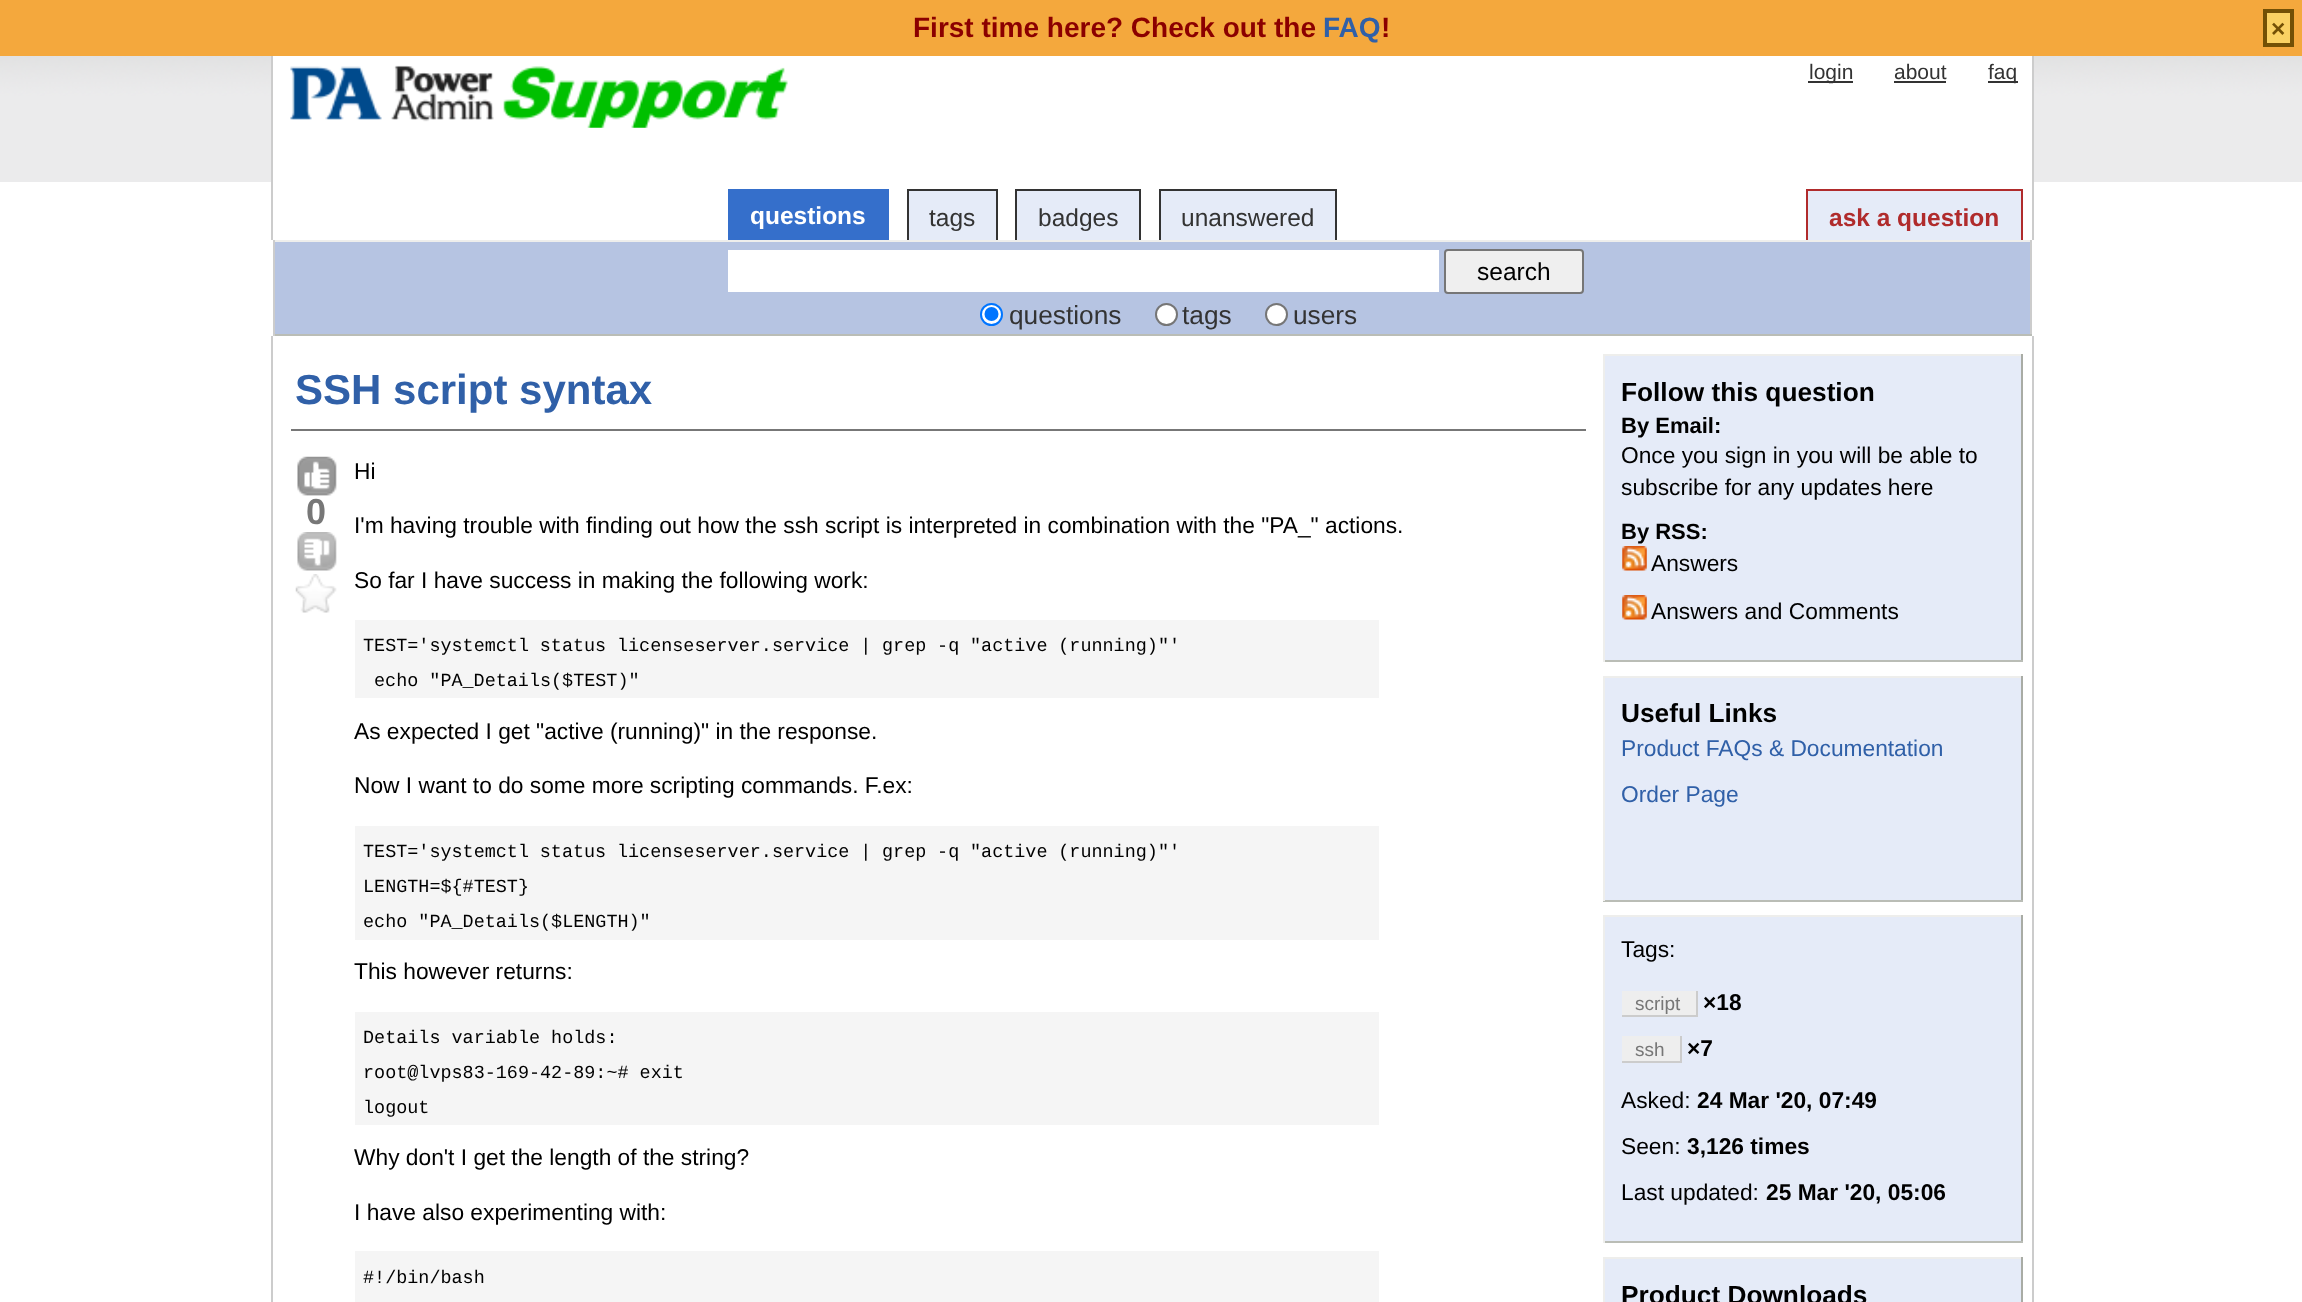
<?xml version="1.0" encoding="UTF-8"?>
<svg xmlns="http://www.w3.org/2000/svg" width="2302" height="1302">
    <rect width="100%" height="100%" fill="#FFFFFF"/>
    <image x="0" y="56" width="2302" height="126" href="img_01.png"/>
    <rect x="2032" y="53" width="2" height="187" fill="#CCCCCC"/>
    <rect x="271" y="53" width="2" height="187" fill="#CCCCCC"/>
    <rect x="0" y="0" width="2302" height="56" fill="#F4A83D"/>
    <text x="913" y="37" font-family="Liberation Sans" font-size="28" font-weight="700" fill="#8B0000">First time here? Check out the</text>
    <text x="1323" y="37" font-family="Liberation Sans" font-size="28" font-weight="700" fill="#3060A8">FAQ</text>
    <text x="1381" y="37" font-family="Liberation Sans" font-size="28" font-weight="700" fill="#8B0000">!</text>
    <rect x="2265" y="11" width="27" height="34" fill="#FAD163" stroke="#735005" stroke-width="4"/>
    <text x="2271" y="37" font-family="Liberation Sans" font-size="24.5" font-weight="700" fill="#735005">×</text>
    <rect x="273" y="56" width="1759" height="126" fill="#FFFFFF"/>
    <image x="290" y="65" width="498" height="63" href="img_02.png"/>
    <rect x="1808" y="81" width="45" height="2" fill="#333333"/>
    <text x="1809" y="79" font-family="Liberation Sans" font-size="21" fill="#333333">login</text>
    <text x="1894" y="79" font-family="Liberation Sans" font-size="21" fill="#333333">about</text>
    <rect x="1894" y="81" width="52" height="2" fill="#333333"/>
    <rect x="1988" y="81" width="30" height="2" fill="#333333"/>
    <text x="1988" y="79" font-family="Liberation Sans" font-size="21" fill="#333333">faq</text>
    <rect x="728" y="189" width="161" height="51" fill="#356FCB"/>
    <text x="750" y="224" font-family="Liberation Sans" font-size="24.5" font-weight="700" fill="#FFFFFF">questions</text>
    <rect x="909" y="191" width="87" height="49" fill="#E5EBF8"/>
    <rect x="907" y="189" width="91" height="2" fill="#333333"/>
    <rect x="996" y="189" width="2" height="51" fill="#333333"/>
    <rect x="907" y="189" width="2" height="51" fill="#333333"/>
    <text x="929" y="226" font-family="Liberation Sans" font-size="24.5" fill="#333333">tags</text>
    <rect x="1017" y="191" width="122" height="49" fill="#E5EBF8"/>
    <rect x="1015" y="189" width="126" height="2" fill="#333333"/>
    <rect x="1139" y="189" width="2" height="51" fill="#333333"/>
    <rect x="1015" y="189" width="2" height="51" fill="#333333"/>
    <text x="1038" y="226" font-family="Liberation Sans" font-size="24.5" fill="#333333">badges</text>
    <rect x="1161" y="191" width="174" height="49" fill="#E5EBF8"/>
    <rect x="1159" y="189" width="178" height="2" fill="#333333"/>
    <rect x="1335" y="189" width="2" height="51" fill="#333333"/>
    <rect x="1159" y="189" width="2" height="51" fill="#333333"/>
    <text x="1181" y="226" font-family="Liberation Sans" font-size="24.5" fill="#333333">unanswered</text>
    <rect x="1808" y="191" width="213" height="49" fill="#E5EBF8"/>
    <rect x="1806" y="189" width="217" height="2" fill="#B02B2C"/>
    <rect x="2021" y="189" width="2" height="51" fill="#B02B2C"/>
    <rect x="1806" y="189" width="2" height="51" fill="#B02B2C"/>
    <text x="1829" y="226" font-family="Liberation Sans" font-size="24.5" font-weight="700" fill="#B02B2C">ask a question</text>
    <rect x="275" y="242" width="1755" height="92" fill="#B6C4E2"/>
    <rect x="273" y="240" width="1759" height="2" fill="#EEEEEC"/>
    <rect x="2030" y="240" width="2" height="96" fill="#CCCCCC"/>
    <rect x="273" y="334" width="1759" height="2" fill="#BABDB6"/>
    <rect x="273" y="240" width="2" height="96" fill="#CCCCCC"/>
    <rect x="728" y="250" width="711" height="42" fill="#FFFFFF"/>
    <rect x="1445" y="250" width="138" height="43" rx="3" fill="#EFEFEF" stroke="#767676" stroke-width="2"/>
    <text x="1477" y="280" font-family="Liberation Sans" font-size="24.5" fill="#000000">search</text>
    <circle cx="991.5" cy="314.5" r="10.5" fill="#FFFFFF" stroke="#0075FF" stroke-width="2"/>
    <circle cx="991.5" cy="314" r="7" fill="#0075FF"/>
    <text x="1009" y="324" font-family="Liberation Sans" font-size="26.25" fill="#333333">questions</text>
    <circle cx="1166.5" cy="314.5" r="10.5" fill="#FFFFFF" stroke="#767676" stroke-width="2"/>
    <text x="1182" y="324" font-family="Liberation Sans" font-size="26.25" fill="#333333">tags</text>
    <circle cx="1276.5" cy="314.5" r="10.5" fill="#FFFFFF" stroke="#767676" stroke-width="2"/>
    <text x="1293" y="324" font-family="Liberation Sans" font-size="26.25" fill="#333333">users</text>
    <rect x="2032" y="336" width="2" height="966" fill="#CCCCCC"/>
    <rect x="271" y="336" width="2" height="966" fill="#CCCCCC"/>
    <rect x="291" y="429" width="1295" height="2" fill="#777777"/>
    <text x="295" y="404" font-family="Liberation Sans" font-size="42" font-weight="700" fill="#3060A8">SSH script syntax</text>
    <image x="297" y="456" width="40" height="40" href="img_03.png"/>
    <text x="306" y="524" font-family="Liberation Sans" font-size="36" font-weight="700" fill="#777777">0</text>
    <image x="297" y="532" width="40" height="39" href="img_04.png"/>
    <image x="295" y="574" width="42" height="39" href="img_05.png"/>
    <text x="354" y="479" font-family="Liberation Sans" font-size="22.75" fill="#000000">Hi</text>
    <text x="354" y="533" font-family="Liberation Sans" font-size="22.75" fill="#000000">I'm having trouble with finding out how the ssh script is interpreted in combination with the "PA_" actions.</text>
    <text x="354" y="588" font-family="Liberation Sans" font-size="22.75" fill="#000000">So far I have success in making the following work:</text>
    <rect x="355" y="620" width="1024" height="78" fill="#F5F5F5"/>
    <text x="363" y="651" word-spacing="-0.25" font-family="Liberation Mono" font-size="18.45" fill="#000000">TEST='systemctl status licenseserver.service | grep -q "active (running)"'</text>
    <text x="374" y="686" font-family="Liberation Mono" font-size="18.45" fill="#000000">echo "PA_Details($TEST)"</text>
    <text x="354" y="739" font-family="Liberation Sans" font-size="22.75" fill="#000000">As expected I get "active (running)" in the response.</text>
    <text x="354" y="793" font-family="Liberation Sans" font-size="22.75" fill="#000000">Now I want to do some more scripting commands. F.ex:</text>
    <rect x="355" y="826" width="1024" height="114" fill="#F5F5F5"/>
    <text font-family="Liberation Mono" font-size="18.45" fill="#000000">
        <tspan x="363" y="857" word-spacing="-0.25">TEST='systemctl status licenseserver.service | grep -q "active (running)"'</tspan>
        <tspan x="363" y="892">LENGTH=${#TEST}</tspan>
        <tspan x="363" y="927">echo "PA_Details($LENGTH)"</tspan>
    </text>
    <text x="354" y="979" font-family="Liberation Sans" font-size="22.75" fill="#000000">This however returns:</text>
    <rect x="355" y="1012" width="1024" height="113" fill="#F5F5F5"/>
    <text font-family="Liberation Mono" font-size="18.45" fill="#000000">
        <tspan x="363" y="1043">Details variable holds:</tspan>
        <tspan x="363" y="1078">root@lvps83-169-42-89:~# exit</tspan>
        <tspan x="363" y="1113">logout</tspan>
    </text>
    <text x="354" y="1165" font-family="Liberation Sans" font-size="22.75" fill="#000000">Why don't I get the length of the string?</text>
    <text x="354" y="1220" font-family="Liberation Sans" font-size="22.75" fill="#000000">I have also experimenting with:</text>
    <rect x="355" y="1251" width="1024" height="51" fill="#F5F5F5"/>
    <text x="363" y="1283" font-family="Liberation Mono" font-size="18.45" fill="#000000">#!/bin/bash</text>
    <rect x="1605" y="356" width="416" height="304" fill="#E5EBF8"/>
    <rect x="1603" y="354" width="420" height="2" fill="#EEEEEC"/>
    <rect x="2021" y="354" width="2" height="308" fill="#A9ACA5"/>
    <rect x="1603" y="660" width="420" height="2" fill="#BABDB6"/>
    <rect x="1603" y="354" width="2" height="308" fill="#EEEEEC"/>
    <text x="1621" y="401" font-family="Liberation Sans" font-size="26.25" font-weight="700" fill="#000000">Follow this question</text>
    <text x="1621" y="433" font-family="Liberation Sans" font-size="22" font-weight="700" fill="#000000">By Email:</text>
    <text font-family="Liberation Sans" font-size="22.75" fill="#000000">
        <tspan x="1621" y="463">Once you sign in you will be able to</tspan>
        <tspan x="1621" y="495">subscribe for any updates here</tspan>
    </text>
    <text x="1621" y="539" font-family="Liberation Sans" font-size="22" font-weight="700" fill="#000000">By RSS:</text>
    <image x="1622" y="546" width="25" height="25" href="img_06.png"/>
    <text x="1651" y="571" font-family="Liberation Sans" font-size="22.75" fill="#000000">Answers</text>
    <image x="1622" y="595" width="25" height="25" href="img_06.png"/>
    <text x="1651" y="619" font-family="Liberation Sans" font-size="22.75" fill="#000000">Answers and Comments</text>
    <rect x="1605" y="678" width="416" height="222" fill="#E5EBF8"/>
    <rect x="1603" y="676" width="420" height="2" fill="#EEEEEC"/>
    <rect x="2021" y="676" width="2" height="225" fill="#A9ACA5"/>
    <rect x="1603" y="900" width="420" height="2" fill="#BABDB6"/>
    <rect x="1603" y="676" width="2" height="225" fill="#EEEEEC"/>
    <text x="1621" y="722" font-family="Liberation Sans" font-size="26.25" font-weight="700" fill="#000000">Useful Links</text>
    <text x="1621" y="756" font-family="Liberation Sans" font-size="22.75" fill="#3060A8">Product FAQs &amp; Documentation</text>
    <text x="1621" y="802" font-family="Liberation Sans" font-size="22.75" fill="#3060A8">Order Page</text>
    <rect x="1605" y="917" width="416" height="324" fill="#E5EBF8"/>
    <rect x="1603" y="915" width="420" height="2" fill="#EEEEEC"/>
    <rect x="2021" y="915" width="2" height="328" fill="#A9ACA5"/>
    <rect x="1603" y="1241" width="420" height="2" fill="#BABDB6"/>
    <rect x="1603" y="915" width="2" height="328" fill="#EEEEEC"/>
    <text x="1621" y="957" font-family="Liberation Sans" font-size="22.75" fill="#000000">Tags:</text>
    <rect x="1622" y="991" width="74" height="24" fill="#EEEEEE"/>
    <text x="1635" y="1010" font-family="Liberation Sans" font-size="19" fill="#777777">script</text>
    <rect x="1696" y="991" width="2" height="26" fill="#CCCCCC"/>
    <rect x="1622" y="1015" width="76" height="2" fill="#CCCCCC"/>
    <text x="1703" y="1010" font-family="Liberation Sans" font-size="22.75" font-weight="700" fill="#000000">×18</text>
    <rect x="1622" y="1036" width="58" height="25" fill="#EEEEEE"/>
    <text x="1635" y="1056" font-family="Liberation Sans" font-size="19" fill="#777777">ssh</text>
    <rect x="1680" y="1036" width="2" height="26" fill="#CCCCCC"/>
    <rect x="1622" y="1061" width="60" height="2" fill="#CCCCCC"/>
    <text x="1687" y="1056" font-family="Liberation Sans" font-size="22.75" font-weight="700" fill="#000000">×7</text>
    <text x="1621" y="1108" font-family="Liberation Sans" font-size="22.75" fill="#000000">Asked:</text>
    <text x="1697" y="1108" font-family="Liberation Sans" font-size="22.75" font-weight="700" fill="#000000">24 Mar '20, 07:49</text>
    <text x="1621" y="1154" font-family="Liberation Sans" font-size="22.75" fill="#000000">Seen:</text>
    <text x="1687" y="1154" font-family="Liberation Sans" font-size="22.75" font-weight="700" fill="#000000">3,126 times</text>
    <text x="1621" y="1200" font-family="Liberation Sans" font-size="22.75" fill="#000000">Last updated:</text>
    <text x="1766" y="1200" font-family="Liberation Sans" font-size="22.75" font-weight="700" fill="#000000">25 Mar '20, 05:06</text>
    <rect x="1605" y="1259" width="416" height="43" fill="#E5EBF8"/>
    <rect x="1603" y="1257" width="420" height="2" fill="#EEEEEC"/>
    <rect x="2021" y="1257" width="2" height="45" fill="#A9ACA5"/>
    <rect x="1603" y="1257" width="2" height="45" fill="#EEEEEC"/>
    <text x="1621" y="1304" font-family="Liberation Sans" font-size="26.25" font-weight="700" fill="#000000">Product Downloads</text>
</svg>
